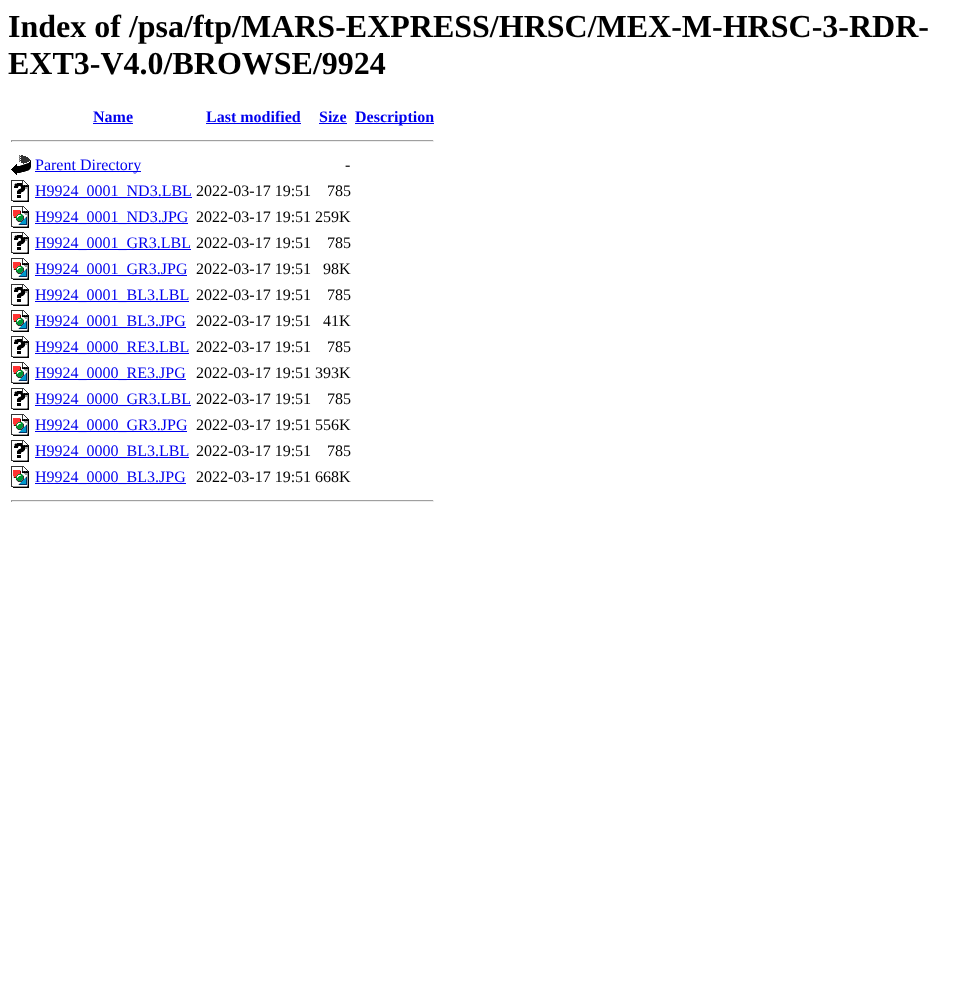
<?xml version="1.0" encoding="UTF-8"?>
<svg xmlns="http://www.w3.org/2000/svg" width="968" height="990">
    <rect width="100%" height="100%" fill="#FFFFFF"/>
    <text font-family="Liberation Serif" font-size="32" font-weight="700" fill="#000000">
        <tspan x="8" y="37">Index of /psa/ftp/MARS-EXPRESS/HRSC/MEX-M-HRSC-3-RDR-</tspan>
        <tspan x="8" y="74">EXT3-V4.0/BROWSE/9924</tspan>
    </text>
    <text x="93" y="122" font-family="Liberation Serif" font-size="16" font-weight="700" fill="#0000EE">Name</text>
    <rect x="93" y="123" width="40" height="1" fill="#0000EE"/>
    <text x="206" y="122" font-family="Liberation Serif" font-size="16" font-weight="700" fill="#0000EE">Last modified</text>
    <rect x="206" y="123" width="95" height="1" fill="#0000EE"/>
    <text x="319" y="122" font-family="Liberation Serif" font-size="16" font-weight="700" fill="#0000EE">Size</text>
    <rect x="319" y="123" width="28" height="1" fill="#0000EE"/>
    <rect x="355" y="123" width="79" height="1" fill="#0000EE"/>
    <text x="355" y="122" font-family="Liberation Serif" font-size="16" font-weight="700" fill="#0000EE">Description</text>
    <rect x="11" y="140" width="423" height="1" fill="#9F9F9F"/>
    <rect x="433" y="140" width="1" height="2" fill="#EEEEEE"/>
    <rect x="11" y="141" width="423" height="1" fill="#EEEEEE"/>
    <rect x="11" y="140" width="1" height="2" fill="#9F9F9F"/>
    <image x="11" y="155" width="20" height="20" href="img_01.png"/>
    <rect x="35" y="171" width="106" height="1" fill="#0000EE"/>
    <text x="35" y="170" font-family="Liberation Serif" font-size="16" fill="#0000EE">Parent Directory</text>
    <text x="345" y="170" font-family="Liberation Serif" font-size="16" fill="#000000">-</text>
    <image x="11" y="180" width="18" height="22" href="img_02.png"/>
    <rect x="35" y="197" width="157" height="1" fill="#0000EE"/>
    <text x="35" y="196" font-family="Liberation Serif" font-size="16" fill="#0000EE">H9924_0001_ND3.LBL</text>
    <text x="196" y="196" font-family="Liberation Serif" font-size="16" fill="#000000">2022-03-17 19:51</text>
    <text x="327" y="196" font-family="Liberation Serif" font-size="16" fill="#000000">785</text>
    <image x="11" y="206" width="18" height="22" href="img_03.png"/>
    <rect x="35" y="223" width="153" height="1" fill="#0000EE"/>
    <text x="35" y="222" font-family="Liberation Serif" font-size="16" fill="#0000EE">H9924_0001_ND3.JPG</text>
    <text x="196" y="222" font-family="Liberation Serif" font-size="16" fill="#000000">2022-03-17 19:51 259K</text>
    <image x="11" y="232" width="18" height="22" href="img_02.png"/>
    <rect x="35" y="249" width="156" height="1" fill="#0000EE"/>
    <text x="35" y="248" font-family="Liberation Serif" font-size="16" fill="#0000EE">H9924_0001_GR3.LBL</text>
    <text x="196" y="248" font-family="Liberation Serif" font-size="16" fill="#000000">2022-03-17 19:51</text>
    <text x="327" y="248" font-family="Liberation Serif" font-size="16" fill="#000000">785</text>
    <image x="11" y="258" width="18" height="22" href="img_03.png"/>
    <rect x="35" y="275" width="152" height="1" fill="#0000EE"/>
    <text x="35" y="274" font-family="Liberation Serif" font-size="16" fill="#0000EE">H9924_0001_GR3.JPG</text>
    <text x="196" y="274" font-family="Liberation Serif" font-size="16" fill="#000000">2022-03-17 19:51</text>
    <text x="323" y="274" font-family="Liberation Serif" font-size="16" fill="#000000">98K</text>
    <image x="11" y="284" width="18" height="22" href="img_02.png"/>
    <rect x="35" y="301" width="154" height="1" fill="#0000EE"/>
    <text x="35" y="300" font-family="Liberation Serif" font-size="16" fill="#0000EE">H9924_0001_BL3.LBL</text>
    <text x="196" y="300" font-family="Liberation Serif" font-size="16" fill="#000000">2022-03-17 19:51</text>
    <text x="327" y="300" font-family="Liberation Serif" font-size="16" fill="#000000">785</text>
    <image x="11" y="310" width="18" height="22" href="img_03.png"/>
    <rect x="35" y="327" width="151" height="1" fill="#0000EE"/>
    <text x="35" y="326" font-family="Liberation Serif" font-size="16" fill="#0000EE">H9924_0001_BL3.JPG</text>
    <text x="196" y="326" font-family="Liberation Serif" font-size="16" fill="#000000">2022-03-17 19:51</text>
    <text x="323" y="326" font-family="Liberation Serif" font-size="16" fill="#000000">41K</text>
    <image x="11" y="336" width="18" height="22" href="img_02.png"/>
    <rect x="35" y="353" width="154" height="1" fill="#0000EE"/>
    <text x="35" y="352" font-family="Liberation Serif" font-size="16" fill="#0000EE">H9924_0000_RE3.LBL</text>
    <text x="196" y="352" font-family="Liberation Serif" font-size="16" fill="#000000">2022-03-17 19:51</text>
    <text x="327" y="352" font-family="Liberation Serif" font-size="16" fill="#000000">785</text>
    <image x="11" y="362" width="18" height="22" href="img_03.png"/>
    <rect x="35" y="379" width="151" height="1" fill="#0000EE"/>
    <text x="35" y="378" font-family="Liberation Serif" font-size="16" fill="#0000EE">H9924_0000_RE3.JPG</text>
    <text x="196" y="378" font-family="Liberation Serif" font-size="16" fill="#000000">2022-03-17 19:51 393K</text>
    <image x="11" y="388" width="18" height="22" href="img_02.png"/>
    <rect x="35" y="405" width="156" height="1" fill="#0000EE"/>
    <text x="35" y="404" font-family="Liberation Serif" font-size="16" fill="#0000EE">H9924_0000_GR3.LBL</text>
    <text x="196" y="404" font-family="Liberation Serif" font-size="16" fill="#000000">2022-03-17 19:51</text>
    <text x="327" y="404" font-family="Liberation Serif" font-size="16" fill="#000000">785</text>
    <image x="11" y="414" width="18" height="22" href="img_03.png"/>
    <rect x="35" y="431" width="152" height="1" fill="#0000EE"/>
    <text x="35" y="430" font-family="Liberation Serif" font-size="16" fill="#0000EE">H9924_0000_GR3.JPG</text>
    <text x="196" y="430" font-family="Liberation Serif" font-size="16" fill="#000000">2022-03-17 19:51 556K</text>
    <image x="11" y="440" width="18" height="22" href="img_02.png"/>
    <rect x="35" y="457" width="154" height="1" fill="#0000EE"/>
    <text x="35" y="456" font-family="Liberation Serif" font-size="16" fill="#0000EE">H9924_0000_BL3.LBL</text>
    <text x="196" y="456" font-family="Liberation Serif" font-size="16" fill="#000000">2022-03-17 19:51</text>
    <text x="327" y="456" font-family="Liberation Serif" font-size="16" fill="#000000">785</text>
    <image x="11" y="466" width="18" height="22" href="img_03.png"/>
    <rect x="35" y="483" width="151" height="1" fill="#0000EE"/>
    <text x="35" y="482" font-family="Liberation Serif" font-size="16" fill="#0000EE">H9924_0000_BL3.JPG</text>
    <text x="196" y="482" font-family="Liberation Serif" font-size="16" fill="#000000">2022-03-17 19:51 668K</text>
    <rect x="11" y="500" width="423" height="1" fill="#9F9F9F"/>
    <rect x="433" y="500" width="1" height="2" fill="#EEEEEE"/>
    <rect x="11" y="501" width="423" height="1" fill="#EEEEEE"/>
    <rect x="11" y="500" width="1" height="2" fill="#9F9F9F"/>
</svg>
